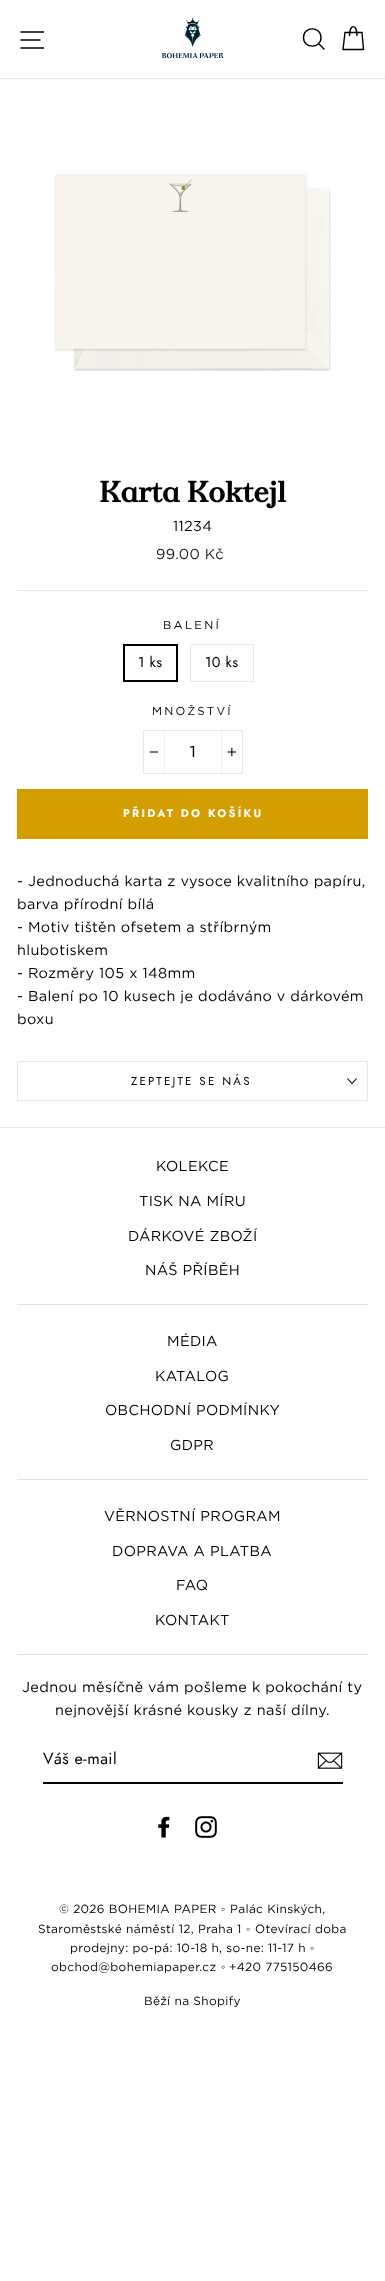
<?xml version="1.0" encoding="UTF-8"?>
<svg xmlns="http://www.w3.org/2000/svg" width="385" height="2281">
    <rect width="100%" height="100%" fill="#FFFFFF"/>
    <rect x="0" y="78" width="385" height="1" fill="#E8E8E1"/>
    <path d="M 20.5 32 H 44 M 20.5 40 H 40.5 M 20.5 48 H 44" fill="none" stroke="#000000" stroke-width="1.4"/>
    <image x="161" y="18" width="63" height="41" href="img_01.png"/>
    <path d="M 321 37.5 C 321 49 303.5 49 303.5 37.5 C 303.5 26 321 26 321 37.5 Z M 324.5 49.5 L 318.5 43.5 M 349.5 36 C 349.5 23.5 357 23.5 357 36 M 345 32.5 H 362 L 363.5 49.5 H 343 Z" fill="none" stroke="#000000" stroke-width="1.4"/>
    <image x="54" y="173" width="277" height="199" href="img_02.png"/>
    <text x="99" y="502" font-family="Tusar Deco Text" font-size="29.25" font-weight="700" fill="#000000">Karta Koktejl</text>
    <text x="173" y="531" font-family="Gotham" font-size="14.45" letter-spacing="0.35" fill="#000000">11234</text>
    <text x="156" y="559" font-family="Gotham" font-size="14.45" letter-spacing="0.35" fill="#1C1D1D">99.00 Kč</text>
    <rect x="17" y="590" width="351" height="1" fill="#E8E8E1"/>
    <text x="163" y="629" font-family="Gotham" font-size="11.5" letter-spacing="2.25" fill="#000000">BALENÍ</text>
    <rect x="124" y="645" width="53" height="36" fill="none" stroke="#000000" stroke-width="2"/>
    <text x="138" y="667" font-family="Jost" font-size="14.45" letter-spacing="0.35" fill="#000000">1 ks</text>
    <rect x="190.5" y="644.5" width="63" height="37" fill="none" stroke="#E8E8E1"/>
    <text x="205" y="667" font-family="Jost" font-size="14.45" letter-spacing="0.35" fill="#000000">10 ks</text>
    <text x="152" y="715" font-family="Gotham" font-size="11.5" letter-spacing="2.25" fill="#000000">MNOŽSTVÍ</text>
    <rect x="143.5" y="730.5" width="99" height="43" fill="none" stroke="#E8E8E1"/>
    <rect x="164" y="731" width="1" height="42" fill="#F2F2F2"/>
    <image x="149" y="751" width="10" height="2" href="img_03.png"/>
    <text x="189" y="757" font-family="Jost" font-size="16" letter-spacing="0.5" fill="#000000">1</text>
    <rect x="221" y="731" width="1" height="42" fill="#F2F2F2"/>
    <image x="227" y="747" width="10" height="10" href="img_04.png"/>
    <rect x="17" y="789" width="351" height="50" fill="#D49D00"/>
    <text x="123" y="817" font-family="Jost" font-size="11" font-weight="700" letter-spacing="2.25" fill="#FFFFFF">PŘIDAT DO KOŠÍKU</text>
    <text font-family="Gotham" font-size="14.45" letter-spacing="0.35" fill="#000000">
        <tspan x="17" y="886">- Jednoduchá karta z vysoce kvalitního papíru,</tspan>
        <tspan x="17" y="909">barva přírodní bílá</tspan>
        <tspan x="17" y="932">- Motiv tištěn ofsetem a stříbrným</tspan>
        <tspan x="17" y="955">hlubotiskem</tspan>
        <tspan x="17" y="978">- Rozměry 105 x 148mm</tspan>
        <tspan x="17" y="1001">- Balení po 10 kusech je dodáváno v dárkovém</tspan>
        <tspan x="17" y="1024">boxu</tspan>
    </text>
    <rect x="17" y="1100" width="351" height="1" fill="#E8E8E1"/>
    <rect x="17" y="1061" width="351" height="1" fill="#E8E8E1"/>
    <rect x="367" y="1061" width="1" height="39" fill="#E8E8E1"/>
    <rect x="17" y="1061" width="1" height="39" fill="#E8E8E1"/>
    <text x="131" y="1085" font-family="Jost" font-size="11.5" letter-spacing="2.25" fill="#000000">ZEPTEJTE SE NÁS</text>
    <path d="M 347.5 1078.5 L 352 1083.5 L 356.5 1078.5" fill="none" stroke="#000000" stroke-width="1.1"/>
    <rect x="0" y="1127" width="385" height="1" fill="#E8E8E1"/>
    <text x="156" y="1171" font-family="Gotham" font-size="14.45" letter-spacing="0.35" fill="#000000">KOLEKCE</text>
    <text x="139" y="1206" font-family="Gotham" font-size="14.45" letter-spacing="0.35" fill="#000000">TISK NA MÍRU</text>
    <text x="128" y="1241" font-family="Gotham" font-size="14.45" letter-spacing="0.35" fill="#000000">DÁRKOVÉ ZBOŽÍ</text>
    <text x="145" y="1275" font-family="Gotham" font-size="14.45" letter-spacing="0.35" fill="#000000">NÁŠ PŘÍBĚH</text>
    <rect x="17" y="1304" width="351" height="1" fill="#E0E0E0"/>
    <text x="167" y="1346" font-family="Gotham" font-size="14.45" letter-spacing="0.35" fill="#000000">MÉDIA</text>
    <text x="155" y="1381" font-family="Gotham" font-size="14.45" letter-spacing="0.35" fill="#000000">KATALOG</text>
    <text x="105" y="1415" font-family="Gotham" font-size="14.45" letter-spacing="0.35" fill="#000000">OBCHODNÍ PODMÍNKY</text>
    <text x="170" y="1450" font-family="Gotham" font-size="14.45" letter-spacing="0.35" fill="#000000">GDPR</text>
    <rect x="17" y="1479" width="351" height="1" fill="#E0E0E0"/>
    <text x="104" y="1521" font-family="Gotham" font-size="14.45" letter-spacing="0.35" fill="#000000">VĚRNOSTNÍ PROGRAM</text>
    <text x="112" y="1556" font-family="Gotham" font-size="14.45" letter-spacing="0.35" fill="#000000">DOPRAVA A PLATBA</text>
    <text x="176" y="1590" font-family="Gotham" font-size="14.45" letter-spacing="0.35" fill="#000000">FAQ</text>
    <text x="155" y="1625" font-family="Gotham" font-size="14.45" letter-spacing="0.35" fill="#000000">KONTAKT</text>
    <rect x="17" y="1654" width="351" height="1" fill="#E0E0E0"/>
    <text x="22" y="1692" font-family="Gotham" font-size="14.45" letter-spacing="0.35" fill="#000000">Jednou měsíčně vám pošleme k pokochání ty</text>
    <text x="55" y="1715" font-family="Gotham" font-size="14.45" letter-spacing="0.35" fill="#000000">nejnovější krásné kousky z naší dílny.</text>
    <rect x="43" y="1782" width="300" height="2" fill="#000000"/>
    <text x="43" y="1764" font-family="Jost" font-size="16" letter-spacing="0.5" fill="#000000">Váš e-mail</text>
    <image x="317" y="1752" width="26" height="17" href="img_05.png"/>
    <image x="158" y="1816" width="12" height="22" href="img_06.png"/>
    <image x="195" y="1816" width="22" height="22" href="img_07.png"/>
    <text x="59" y="1913" font-family="Gotham" font-size="11.9" letter-spacing="0.35" fill="#000000">© 2026 BOHEMIA PAPER</text>
    <text x="221" y="1913" font-family="Liberation Sans" font-size="11.9" letter-spacing="0.35" fill="#000000">◦</text>
    <text x="230" y="1913" font-family="Gotham" font-size="11.9" letter-spacing="0.35" fill="#000000">Palác Kinských,</text>
    <text x="38" y="1933" font-family="Gotham" font-size="11.9" letter-spacing="0.35" fill="#000000">Staroměstské náměstí 12, Praha 1</text>
    <text x="246" y="1933" font-family="Liberation Sans" font-size="11.9" letter-spacing="0.35" fill="#000000">◦</text>
    <text x="255" y="1933" font-family="Gotham" font-size="11.9" letter-spacing="0.35" fill="#000000">Otevírací doba</text>
    <text x="70" y="1952" font-family="Gotham" font-size="11.9" letter-spacing="0.35" fill="#000000">prodejny: po-pá: 10-18 h, so-ne: 11-17 h</text>
    <text x="310" y="1952" font-family="Liberation Sans" font-size="11.9" letter-spacing="0.35" fill="#000000">◦</text>
    <text x="51" y="1971" font-family="Gotham" font-size="11.9" letter-spacing="0.35" fill="#000000">obchod@bohemiapaper.cz</text>
    <text x="221" y="1971" font-family="Liberation Sans" font-size="11.9" letter-spacing="0.35" fill="#000000">◦</text>
    <text x="229" y="1971" font-family="Gotham" font-size="11.9" letter-spacing="0.35" fill="#000000">+420 775150466</text>
    <text x="144" y="2005" font-family="Gotham" font-size="11.9" letter-spacing="0.35" fill="#000000">Běží na Shopify</text>
</svg>
